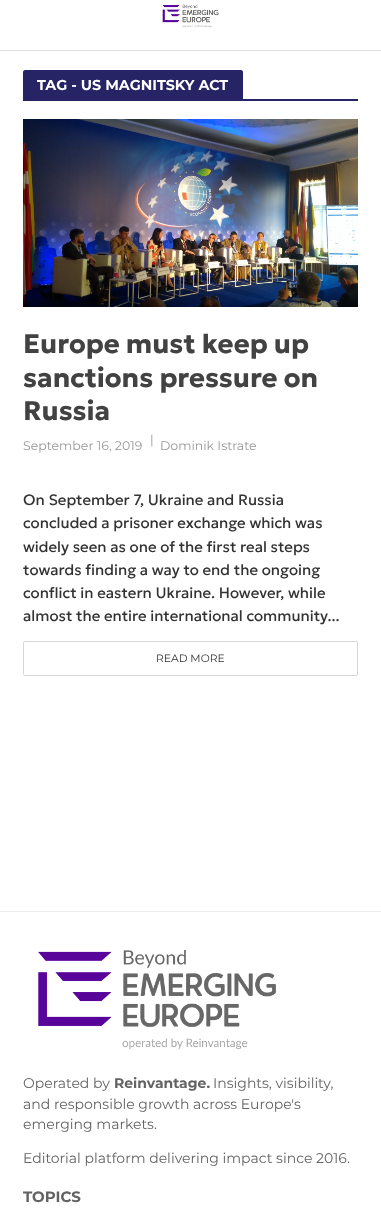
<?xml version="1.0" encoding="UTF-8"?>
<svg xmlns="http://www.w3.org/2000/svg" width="381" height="1226">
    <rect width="100%" height="100%" fill="#FFFFFF"/>
    <path d="M 0 -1 V 0 H 381 V 50 H 0 V 51 H 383 V -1 Z" fill="#DEDEE8"/>
    <image x="162" y="4" width="57" height="24" href="img_01.png"/>
    <path d="M 25 70 H 241 C 242 70 243 71 243 72 V 99 H 23 V 72 C 23 71 24 70 25 70 Z" fill="#262464"/>
    <text x="37" y="90" font-family="Montserrat" font-size="14.3" font-weight="700" fill="#FFFFFF">TAG - US MAGNITSKY ACT</text>
    <rect x="23" y="99" width="335" height="2" fill="#262464"/>
    <image x="23" y="119" width="335" height="188" href="img_02.png"/>
    <text font-family="Geologica" font-size="26.9" font-weight="700" fill="#424242">
        <tspan x="23" y="353">Europe must keep up</tspan>
        <tspan x="23" y="387">sanctions pressure on</tspan>
        <tspan x="23" y="420">Russia</tspan>
    </text>
    <text x="23" y="450" font-family="Montserrat" font-size="12.5" fill="#999999">September 16, 2019</text>
    <text x="150" y="444" font-family="Montserrat" font-size="12.5" fill="#999999">|</text>
    <text x="160" y="450" font-family="Montserrat" font-size="12.5" fill="#999999">Dominik Istrate</text>
    <text font-family="Geologica" font-size="15" fill="#333333">
        <tspan x="23" y="505">On September 7, Ukraine and Russia</tspan>
        <tspan x="23" y="528">concluded a prisoner exchange which was</tspan>
        <tspan x="23" y="552">widely seen as one of the first real steps</tspan>
        <tspan x="23" y="575">towards finding a way to end the ongoing</tspan>
        <tspan x="23" y="598">conflict in eastern Ukraine. However, while</tspan>
        <tspan x="23" y="621">almost the entire international community...</tspan>
    </text>
    <rect x="23.5" y="641.5" width="334" height="34" rx="1.5" fill="none" stroke="#D6D6D6"/>
    <text x="156" y="662" font-family="Montserrat" font-size="10.75" fill="#333333">READ MORE</text>
    <rect x="0" y="911" width="381" height="1" fill="#ECECEC"/>
    <image x="38" y="950" width="238" height="100" href="img_03.png"/>
    <text x="23" y="1088" font-family="Montserrat" font-size="14" fill="#636363">Operated by</text>
    <text x="114" y="1088" font-family="Montserrat" font-size="14" font-weight="700" fill="#636363">Reinvantage.</text>
    <text x="213" y="1088" font-family="Montserrat" font-size="14" fill="#636363">Insights, visibility,</text>
    <text font-family="Montserrat" font-size="14" fill="#636363">
        <tspan x="23" y="1109">and responsible growth across Europe's</tspan>
        <tspan x="23" y="1129">emerging markets.</tspan>
    </text>
    <text x="23" y="1163" font-family="Montserrat" font-size="14" fill="#636363">Editorial platform delivering impact since 2016.</text>
    <text x="23" y="1202" font-family="Montserrat" font-size="15" font-weight="700" fill="#636363">TOPICS</text>
</svg>
